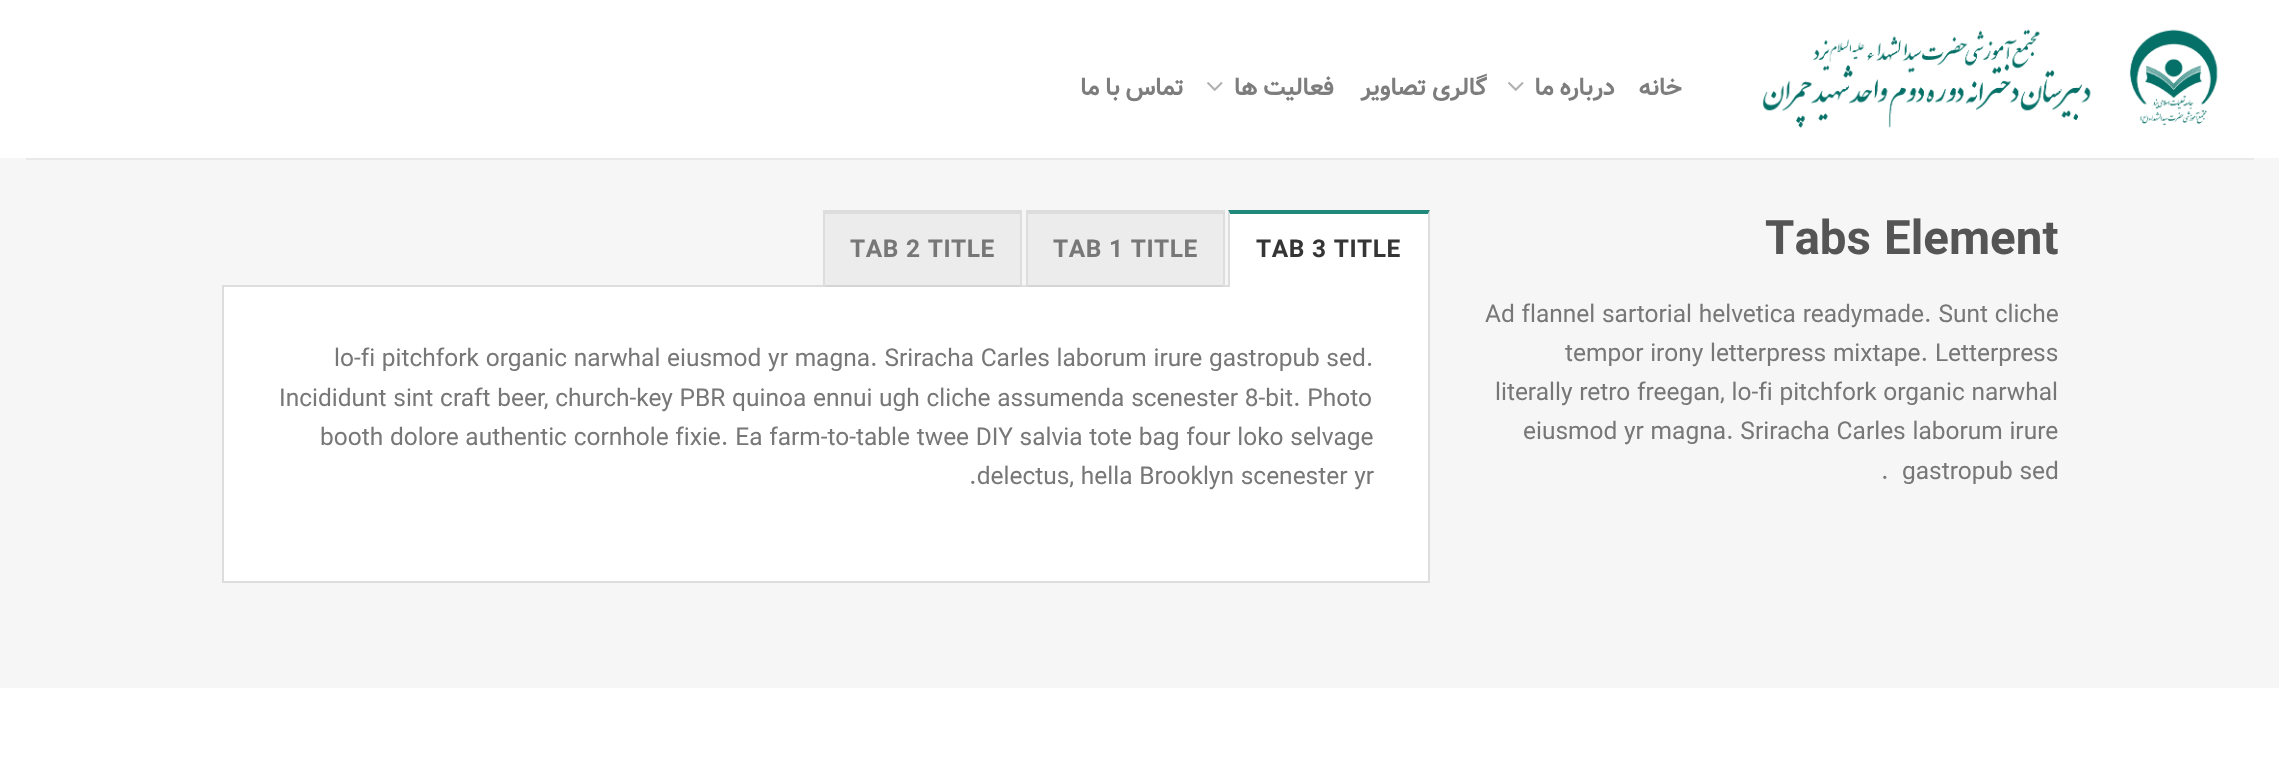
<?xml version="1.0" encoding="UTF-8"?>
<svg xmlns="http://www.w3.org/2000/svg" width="2279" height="758">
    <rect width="100%" height="100%" fill="#FFFFFF"/>
    <text x="1184" y="95" word-spacing="-1" font-family="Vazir" font-size="24.5" font-weight="700" letter-spacing="0.5" direction="rtl" fill="#7D7D7D">تماس با ما</text>
    <image x="1207" y="82" width="16" height="9" href="img_01.png"/>
    <text x="1334" y="95" word-spacing="-1" font-family="Vazir" font-size="24.5" font-weight="700" letter-spacing="0.5" direction="rtl" fill="#7D7D7D">فعالیت ها</text>
    <text x="1487" y="95" word-spacing="-1" font-family="Vazir" font-size="24.5" font-weight="700" letter-spacing="0.5" direction="rtl" fill="#7D7D7D">گالری تصاویر</text>
    <image x="1508" y="82" width="16" height="9" href="img_01.png"/>
    <text x="1615" y="95" word-spacing="-1" font-family="Vazir" font-size="24.5" font-weight="700" letter-spacing="0.5" direction="rtl" fill="#7D7D7D">درباره ما</text>
    <text x="1682" y="95" font-family="Vazir" font-size="24.5" font-weight="700" letter-spacing="0.5" direction="rtl" fill="#7D7D7D">خانه</text>
    <image x="1762" y="29" width="456" height="99" href="img_02.png"/>
    <rect x="0" y="158" width="2279" height="530" fill="#F6F6F6"/>
    <rect x="26" y="158" width="2228" height="2" fill="#E9E9E9"/>
    <rect x="223" y="286" width="1206" height="296" fill="#FFFFFF" stroke="#DDDDDD" stroke-width="2"/>
    <rect x="825" y="214" width="195" height="73" fill="#000000" fill-opacity="0.04"/>
    <rect x="823" y="210" width="199" height="4" fill="#DDDDDD"/>
    <rect x="1020" y="210" width="2" height="77" fill="#DDDDDD"/>
    <rect x="823" y="210" width="2" height="77" fill="#DDDDDD"/>
    <text x="850" y="257" font-family="Vazir" font-size="24.5" font-weight="700" letter-spacing="0.5" fill="#777777">TAB 2 TITLE</text>
    <rect x="1028" y="214" width="195" height="73" fill="#000000" fill-opacity="0.04"/>
    <rect x="1026" y="210" width="199" height="4" fill="#DDDDDD"/>
    <rect x="1223" y="210" width="2" height="77" fill="#DDDDDD"/>
    <rect x="1026" y="210" width="2" height="77" fill="#DDDDDD"/>
    <text x="1053" y="257" font-family="Vazir" font-size="24.5" font-weight="700" letter-spacing="0.5" fill="#777777">TAB 1 TITLE</text>
    <rect x="1229" y="210" width="201" height="77" fill="#FFFFFF"/>
    <path d="M 1228 210 H 1430 L 1428 214 H 1230 Z" fill="#20897B"/>
    <path d="M 1430 210 V 287 H 1428 V 214 Z" fill="#DDDDDD"/>
    <path d="M 1228 287 V 210 L 1230 214 V 287 Z" fill="#DDDDDD"/>
    <text x="1256" y="257" font-family="Vazir" font-size="24.5" font-weight="700" letter-spacing="0.5" fill="#353535">TAB 3 TITLE</text>
    <text x="334" y="366" font-family="Vazir" font-size="24.5" fill="#777777">lo-fi pitchfork organic narwhal eiusmod yr magna. Sriracha Carles laborum irure gastropub sed.</text>
    <text x="279" y="406" font-family="Vazir" font-size="24.5" fill="#777777">Incididunt sint craft beer, church-key PBR quinoa ennui ugh cliche assumenda scenester 8-bit. Photo</text>
    <text x="320" y="445" font-family="Vazir" font-size="24.5" fill="#777777">booth dolore authentic cornhole fixie. Ea farm-to-table twee DIY salvia tote bag four loko selvage</text>
    <text x="969" y="484" font-family="Vazir" font-size="24.5" fill="#777777">.delectus, hella Brooklyn scenester yr</text>
    <text x="1765" y="254" font-family="Vazir" font-size="47.5" font-weight="700" fill="#555555">Tabs Element</text>
    <text x="1485" y="322" font-family="Vazir" font-size="24.5" fill="#777777">Ad flannel sartorial helvetica readymade. Sunt cliche</text>
    <text x="1565" y="361" font-family="Vazir" font-size="24.5" fill="#777777">tempor irony letterpress mixtape. Letterpress</text>
    <text x="1495" y="400" font-family="Vazir" font-size="24.5" fill="#777777">literally retro freegan, lo-fi pitchfork organic narwhal</text>
    <text x="1523" y="439" font-family="Vazir" font-size="24.5" fill="#777777">eiusmod yr magna. Sriracha Carles laborum irure</text>
    <text x="1881" y="479" font-family="Vazir" font-size="24.5" fill="#777777">.</text>
    <text x="1902" y="479" font-family="Vazir" font-size="24.5" fill="#777777">gastropub sed</text>
</svg>
